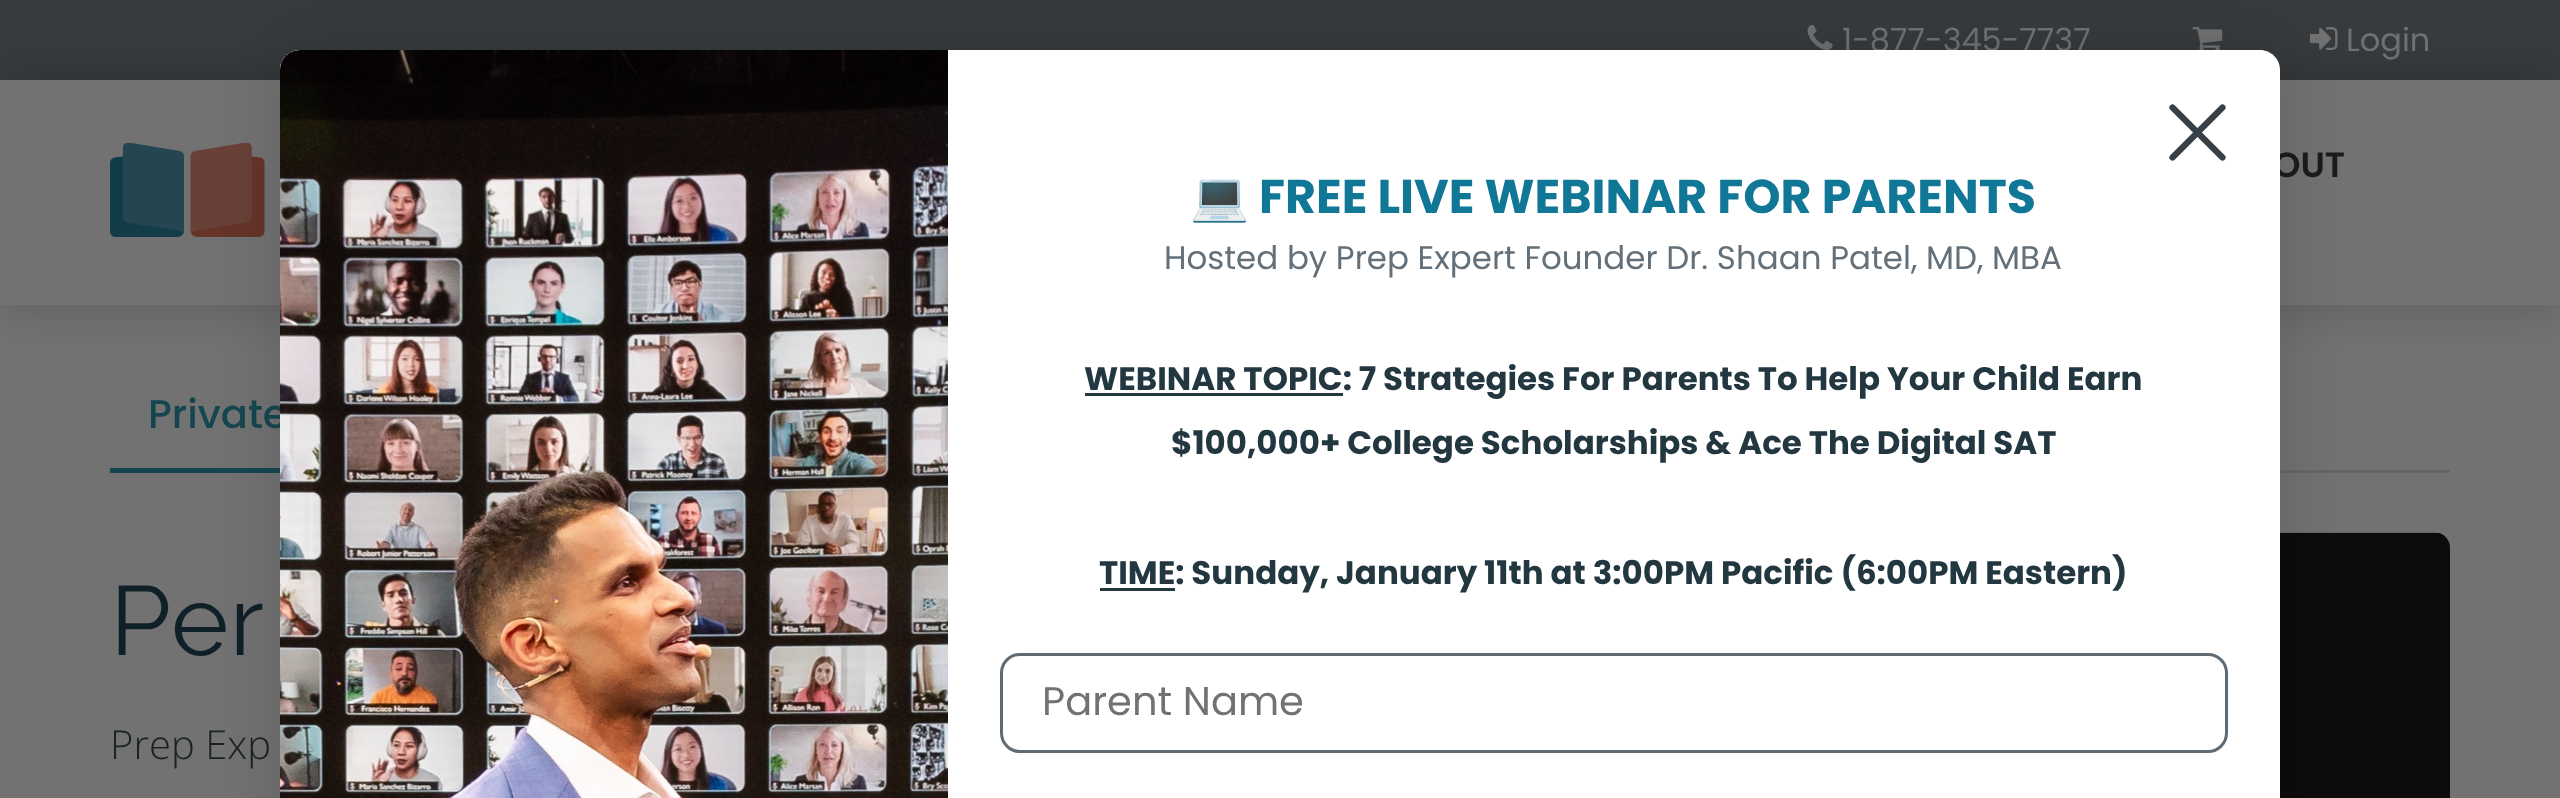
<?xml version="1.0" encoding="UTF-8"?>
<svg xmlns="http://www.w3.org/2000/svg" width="2560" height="798">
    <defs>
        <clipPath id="clip1"><path d="M 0 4 H 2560 V 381 H 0 Z M 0 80 H 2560 V 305 H 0 Z" clip-rule="evenodd"/></clipPath>
        <filter id="blur1" x="-50%" y="-200%" width="200%" height="500%"><feGaussianBlur stdDeviation="25"/></filter>
        <filter id="blur2" x="-50%" y="-200%" width="200%" height="500%"><feGaussianBlur stdDeviation="37.5"/></filter>
    </defs>
    <rect width="100%" height="100%" fill="#727272"/>
    <rect x="0" y="0" width="2560" height="80" fill="#373B3E"/>
    <image x="1807" y="24" width="26" height="26" href="img_01.png"/>
    <text x="1842" y="51" font-family="Poppins" font-size="32" fill="#727272">1-877-345-7737</text>
    <image x="2192" y="27" width="31" height="23" href="img_02.png"/>
    <image x="2310" y="27" width="28" height="23" href="img_03.png"/>
    <text x="2346" y="51" font-family="Poppins" font-size="32" fill="#727272">Login</text>
    <g clip-path="url(#clip1)">
        <rect x="0" y="80" width="2560" height="225" fill="#0C0C0C" fill-opacity="0.2" filter="url(#blur1)"/>
    </g>
    <image x="110" y="143" width="155" height="94" href="img_04.png"/>
    <text x="2273" y="177" font-family="Poppins" font-size="35" font-weight="600" fill="#191B1C">OUT</text>
    <rect x="2280" y="470" width="170" height="3" fill="#656668"/>
    <text x="148" y="428" font-family="Poppins" font-size="40" font-weight="500" fill="#154650">Private</text>
    <rect x="110" y="468" width="170" height="5" fill="#154650"/>
    <text x="110" y="655" font-family="Raleway" font-size="98" letter-spacing="1" fill="#102028">Per</text>
    <text x="110" y="759" font-family="Open Sans" font-size="40" font-weight="300" fill="#1A2226">Prep Exp</text>
    <image x="2280" y="532" width="170" height="266" href="img_05.png"/>
    <rect x="280" y="50" width="2000" height="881" rx="20" fill="#000000" fill-opacity="0.15" filter="url(#blur2)"/>
    <path d="M 300 50 H 2260 C 2271 50 2280 59 2280 70 V 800 H 280 V 70 C 280 59 289 50 300 50 Z" fill="#FFFFFF"/>
    <path d="M 2172.5 107.5 L 2222.5 157.5 M 2172.5 157.5 L 2222.5 107.5 Z" fill="none" stroke="#373F47" stroke-width="6.2" stroke-linecap="round" stroke-linejoin="round"/>
    <path d="M 300 50 H 948 V 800 H 280 V 70 C 280 59 289 50 300 50 Z" fill="#FFFFFF"/>
    <image x="280" y="50" width="668" height="748" href="img_06.png"/>
    <text x="1190" y="213" font-family="Noto Color Emoji" font-size="47.5" font-weight="700" fill="#107896">💻</text>
    <text x="1259" y="213" font-family="Poppins" font-size="47.5" font-weight="700" fill="#107896">FREE LIVE WEBINAR FOR PARENTS</text>
    <text x="1164" y="269" font-family="Poppins" font-size="32.5" fill="#647079">Hosted by Prep Expert Founder Dr. Shaan Patel, MD, MBA</text>
    <rect x="1085" y="393" width="258" height="3" fill="#233741"/>
    <text x="1084" y="390" font-family="Poppins" font-size="32.5" font-weight="700" fill="#233741">WEBINAR TOPIC: 7 Strategies For Parents To Help Your Child Earn</text>
    <text x="1171" y="454" font-family="Poppins" font-size="32.5" font-weight="700" fill="#233741">$100,000+ College Scholarships &amp; Ace The Digital SAT</text>
    <rect x="1100" y="588" width="75" height="3" fill="#233741"/>
    <text x="1099" y="584" font-family="Poppins" font-size="32.5" font-weight="700" fill="#233741">TIME: Sunday, January 11th at 3:00PM Pacific (6:00PM Eastern)</text>
    <rect x="1001.5" y="654.5" width="1225" height="97" rx="18.5" fill="none" stroke="#606A72" stroke-width="3"/>
    <text x="1042" y="715" font-family="Poppins" font-size="40" fill="#727272">Parent Name</text>
</svg>
